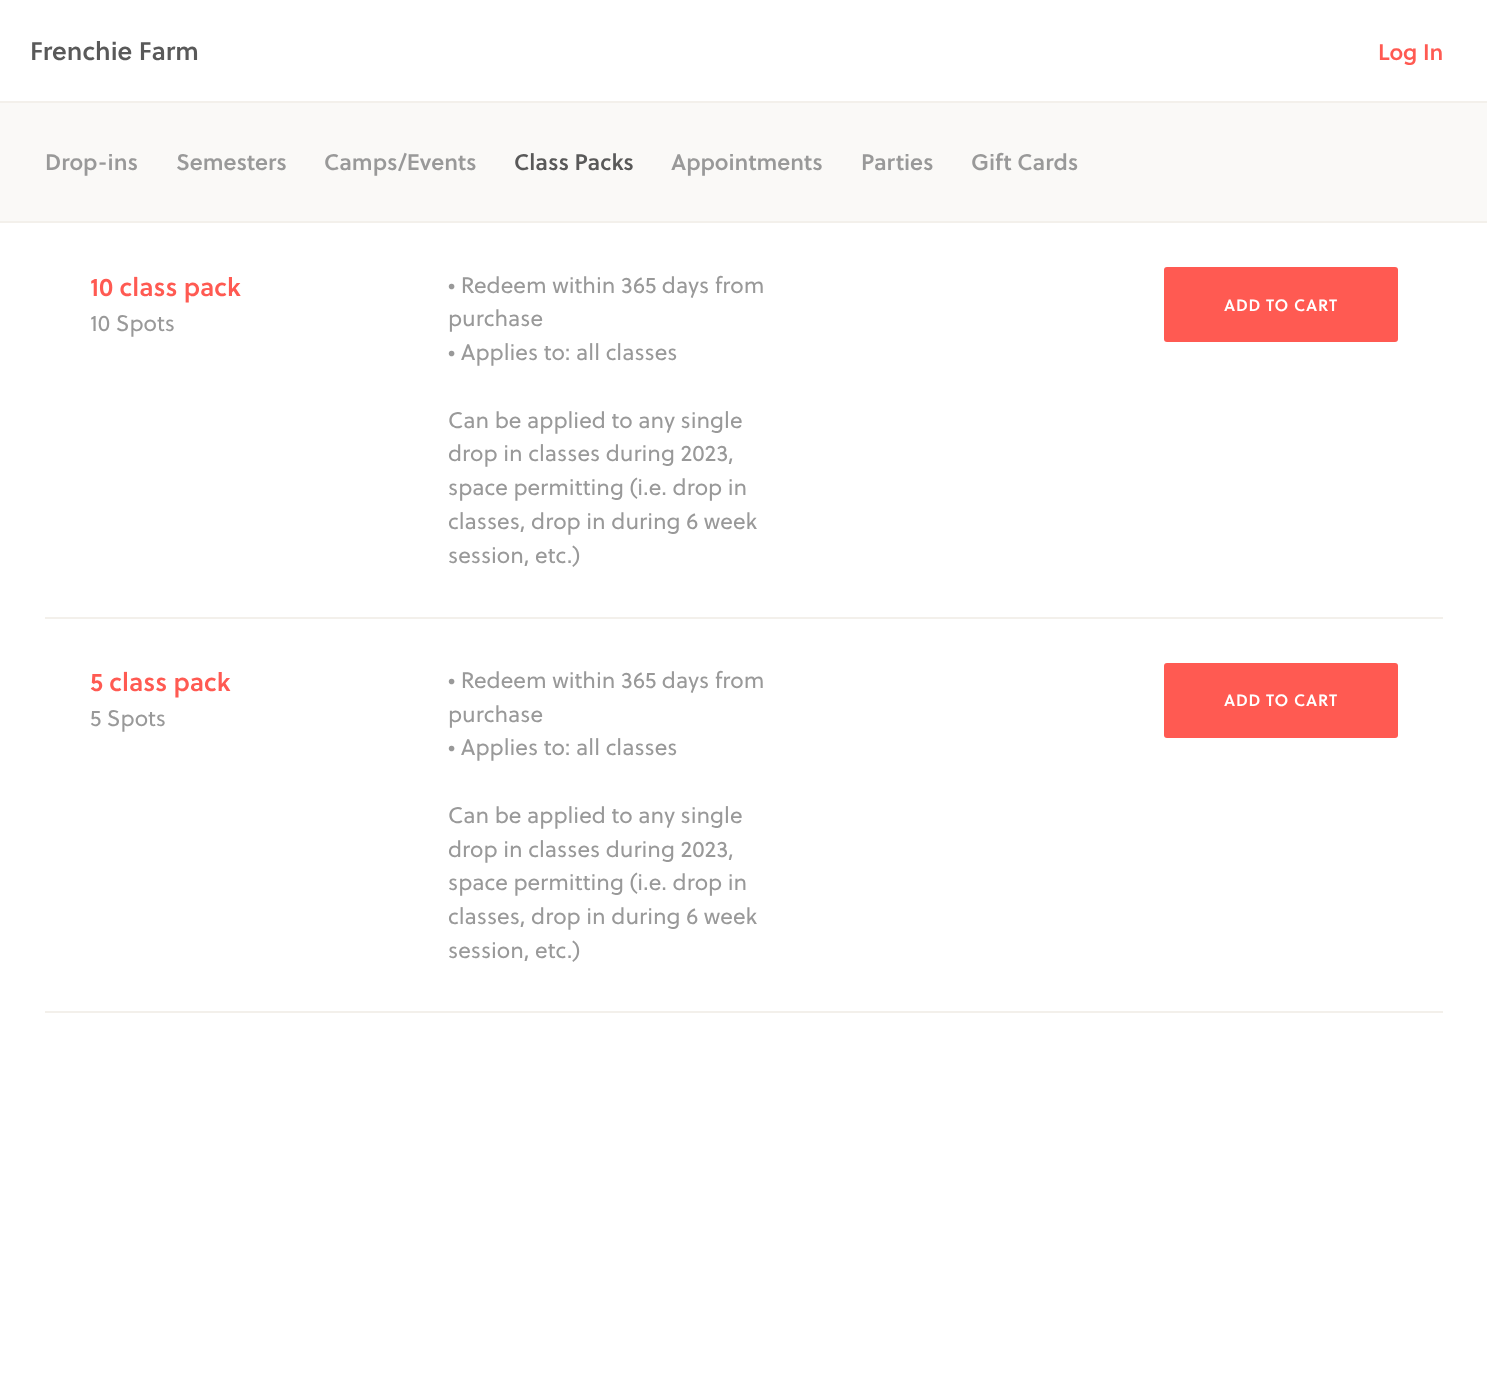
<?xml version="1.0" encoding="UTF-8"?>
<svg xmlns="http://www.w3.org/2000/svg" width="1487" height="1378">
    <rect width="100%" height="100%" fill="#FFFFFF"/>
    <rect x="0" y="101" width="1487" height="2" fill="#F3F0EB"/>
    <text x="30" y="60" font-family="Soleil" font-size="25.5" font-weight="600" fill="#595959">Frenchie Farm</text>
    <text x="1378" y="60" font-family="Soleil" font-size="22.5" font-weight="600" fill="#FF5A52">Log In</text>
    <rect x="0" y="103" width="1487" height="118" fill="#FAF9F7"/>
    <rect x="0" y="221" width="1487" height="2" fill="#F3F0EB"/>
    <text x="45" y="170" font-family="Soleil" font-size="22.5" font-weight="600" fill="#999999">Drop-ins</text>
    <text x="176" y="170" font-family="Soleil" font-size="22.5" font-weight="600" fill="#999999">Semesters</text>
    <text x="324" y="170" font-family="Soleil" font-size="22.5" font-weight="600" fill="#999999">Camps/Events</text>
    <text x="514" y="170" font-family="Soleil" font-size="22.5" font-weight="600" fill="#595959">Class Packs</text>
    <text x="671" y="170" font-family="Soleil" font-size="22.5" font-weight="600" fill="#999999">Appointments</text>
    <text x="861" y="170" font-family="Soleil" font-size="22.5" font-weight="600" fill="#999999">Parties</text>
    <text x="971" y="170" font-family="Soleil" font-size="22.5" font-weight="600" fill="#999999">Gift Cards</text>
    <rect x="45" y="617" width="1398" height="2" fill="#F3F0EB"/>
    <text x="90" y="296" font-family="Soleil" font-size="25.5" font-weight="600" fill="#FF5A52">10 class pack</text>
    <text x="90" y="331" font-family="Soleil" font-size="22.5" fill="#999999">10 Spots</text>
    <text font-family="Soleil" font-size="22.5" fill="#999999">
        <tspan x="448" y="293">• Redeem within 365 days from</tspan>
        <tspan x="448" y="326">purchase</tspan>
        <tspan x="448" y="360">• Applies to: all classes</tspan>
    </text>
    <text font-family="Soleil" font-size="22.5" fill="#999999">
        <tspan x="448" y="428">Can be applied to any single</tspan>
        <tspan x="448" y="461">drop in classes during 2023,</tspan>
        <tspan x="448" y="495">space permitting (i.e. drop in</tspan>
        <tspan x="448" y="529">classes, drop in during 6 week</tspan>
        <tspan x="448" y="563">session, etc.)</tspan>
    </text>
    <rect x="1164" y="267" width="234" height="75" rx="3" fill="#FF5A52"/>
    <text x="1224" y="311" font-family="Soleil" font-size="16.5" font-weight="600" letter-spacing="0.75" fill="#FFFFFF">ADD TO CART</text>
    <rect x="45" y="1011" width="1398" height="2" fill="#F3F0EB"/>
    <text x="90" y="691" font-family="Soleil" font-size="25.5" font-weight="600" fill="#FF5A52">5 class pack</text>
    <text x="90" y="726" font-family="Soleil" font-size="22.5" fill="#999999">5 Spots</text>
    <text font-family="Soleil" font-size="22.5" fill="#999999">
        <tspan x="448" y="688">• Redeem within 365 days from</tspan>
        <tspan x="448" y="722">purchase</tspan>
        <tspan x="448" y="755">• Applies to: all classes</tspan>
    </text>
    <text font-family="Soleil" font-size="22.5" fill="#999999">
        <tspan x="448" y="823">Can be applied to any single</tspan>
        <tspan x="448" y="857">drop in classes during 2023,</tspan>
        <tspan x="448" y="890">space permitting (i.e. drop in</tspan>
        <tspan x="448" y="924">classes, drop in during 6 week</tspan>
        <tspan x="448" y="958">session, etc.)</tspan>
    </text>
    <rect x="1164" y="663" width="234" height="75" rx="3" fill="#FF5A52"/>
    <text x="1224" y="706" font-family="Soleil" font-size="16.5" font-weight="600" letter-spacing="0.75" fill="#FFFFFF">ADD TO CART</text>
</svg>
